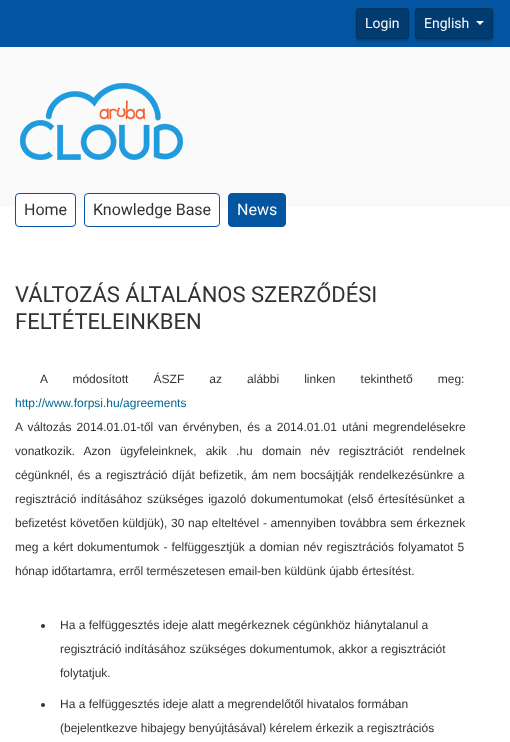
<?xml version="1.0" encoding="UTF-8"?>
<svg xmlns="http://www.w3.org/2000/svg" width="510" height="742">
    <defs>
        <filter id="blur1" x="-50%" y="-200%" width="200%" height="500%"><feGaussianBlur stdDeviation="1.5"/></filter>
    </defs>
    <rect width="100%" height="100%" fill="#FFFFFF"/>
    <rect x="0" y="0" width="510" height="47" fill="#0355A1"/>
    <rect x="356" y="10" width="53" height="31" rx="3" fill="#000000" fill-opacity="0.25" filter="url(#blur1)"/>
    <rect x="356.5" y="8.5" width="52" height="30" rx="2.5" fill="#023B70" stroke="#013360"/>
    <text x="365" y="28" font-family="Roboto" font-size="14" fill="#FAFAFA">Login</text>
    <rect x="415" y="10" width="78" height="31" rx="3" fill="#000000" fill-opacity="0.25" filter="url(#blur1)"/>
    <rect x="415.5" y="8.5" width="77" height="30" rx="2.5" fill="#023B70" stroke="#013360"/>
    <text x="424" y="28" font-family="Roboto" font-size="14" fill="#FAFAFA">English</text>
    <path d="M 476 21 H 484 L 480 25 Z" fill="#FFFFFF"/>
    <rect x="0" y="47" width="510" height="160" fill="#FAFAFA"/>
    <image x="20" y="83" width="163" height="77" href="img_01.png"/>
    <rect x="15.5" y="193.5" width="60" height="33" rx="3.5" fill="#FFFFFF" stroke="#0355A1"/>
    <text x="24" y="215" font-family="Roboto" font-size="16" fill="#333333">Home</text>
    <rect x="84.5" y="193.5" width="135" height="33" rx="3.5" fill="#FFFFFF" stroke="#0355A1"/>
    <text x="93" y="215" font-family="Roboto" font-size="16" fill="#333333">Knowledge Base</text>
    <rect x="228.5" y="193.5" width="57" height="33" rx="3.5" fill="#0355A1" stroke="#0355A1"/>
    <text x="237" y="215" font-family="Roboto" font-size="16" fill="#FAFAFA">News</text>
    <text font-family="Roboto" font-size="22" fill="#333333">
        <tspan x="15" y="302">VÁLTOZÁS ÁLTALÁNOS SZERZŐDÉSI</tspan>
        <tspan x="15" y="329">FELTÉTELEINKBEN</tspan>
    </text>
    <text x="40" y="383" word-spacing="21.75" font-family="Liberation Sans" font-size="12" fill="#333333">A módosított ÁSZF az alábbi linken tekinthető meg:</text>
    <text x="15" y="407" font-family="Liberation Sans" font-size="12" fill="#006693">http://www.forpsi.hu/agreements</text>
    <text x="15" y="431" word-spacing="1.75" font-family="Liberation Sans" font-size="12" fill="#333333">A változás 2014.01.01-től van érvényben, és a 2014.01.01 utáni megrendelésekre</text>
    <text x="15" y="455" word-spacing="5.75" font-family="Liberation Sans" font-size="12" fill="#333333">vonatkozik. Azon ügyfeleinknek, akik .hu domain név regisztrációt rendelnek</text>
    <text x="15" y="479" word-spacing="1.25" font-family="Liberation Sans" font-size="12" fill="#333333">cégünknél, és a regisztráció díját befizetik, ám nem bocsájtják rendelkezésünkre a</text>
    <text x="15" y="503" word-spacing="1.25" font-family="Liberation Sans" font-size="12" fill="#333333">regisztráció indításához szükséges igazoló dokumentumokat (első értesítésünket a</text>
    <text x="15" y="527" word-spacing="0.4" font-family="Liberation Sans" font-size="12" fill="#333333">befizetést követően küldjük), 30 nap elteltével - amennyiben továbbra sem érkeznek</text>
    <text x="15" y="551" word-spacing="0.75" font-family="Liberation Sans" font-size="12" fill="#333333">meg a kért dokumentumok - felfüggesztjük a domian név regisztrációs folyamatot 5</text>
    <text x="15" y="575" font-family="Liberation Sans" font-size="12" fill="#333333">hónap időtartamra, erről természetesen email-ben küldünk újabb értesítést.</text>
    <circle cx="43" cy="626" r="2" fill="#333333"/>
    <text x="60" y="629" font-family="Liberation Sans" font-size="12" fill="#333333">Ha a felfüggesztés ideje alatt megérkeznek cégünkhöz hiánytalanul a</text>
    <text x="60" y="653" font-family="Liberation Sans" font-size="12" fill="#333333">regisztráció indításához szükséges dokumentumok, akkor a regisztrációt</text>
    <text x="60" y="677" font-family="Liberation Sans" font-size="12" fill="#333333">folytatjuk.</text>
    <circle cx="43" cy="705" r="2" fill="#333333"/>
    <text x="60" y="708" font-family="Liberation Sans" font-size="12" fill="#333333">Ha a felfüggesztés ideje alatt a megrendelőtől hivatalos formában</text>
    <text x="60" y="732" font-family="Liberation Sans" font-size="12" fill="#333333">(bejelentkezve hibajegy benyújtásával) kérelem érkezik a regisztrációs</text>
</svg>
